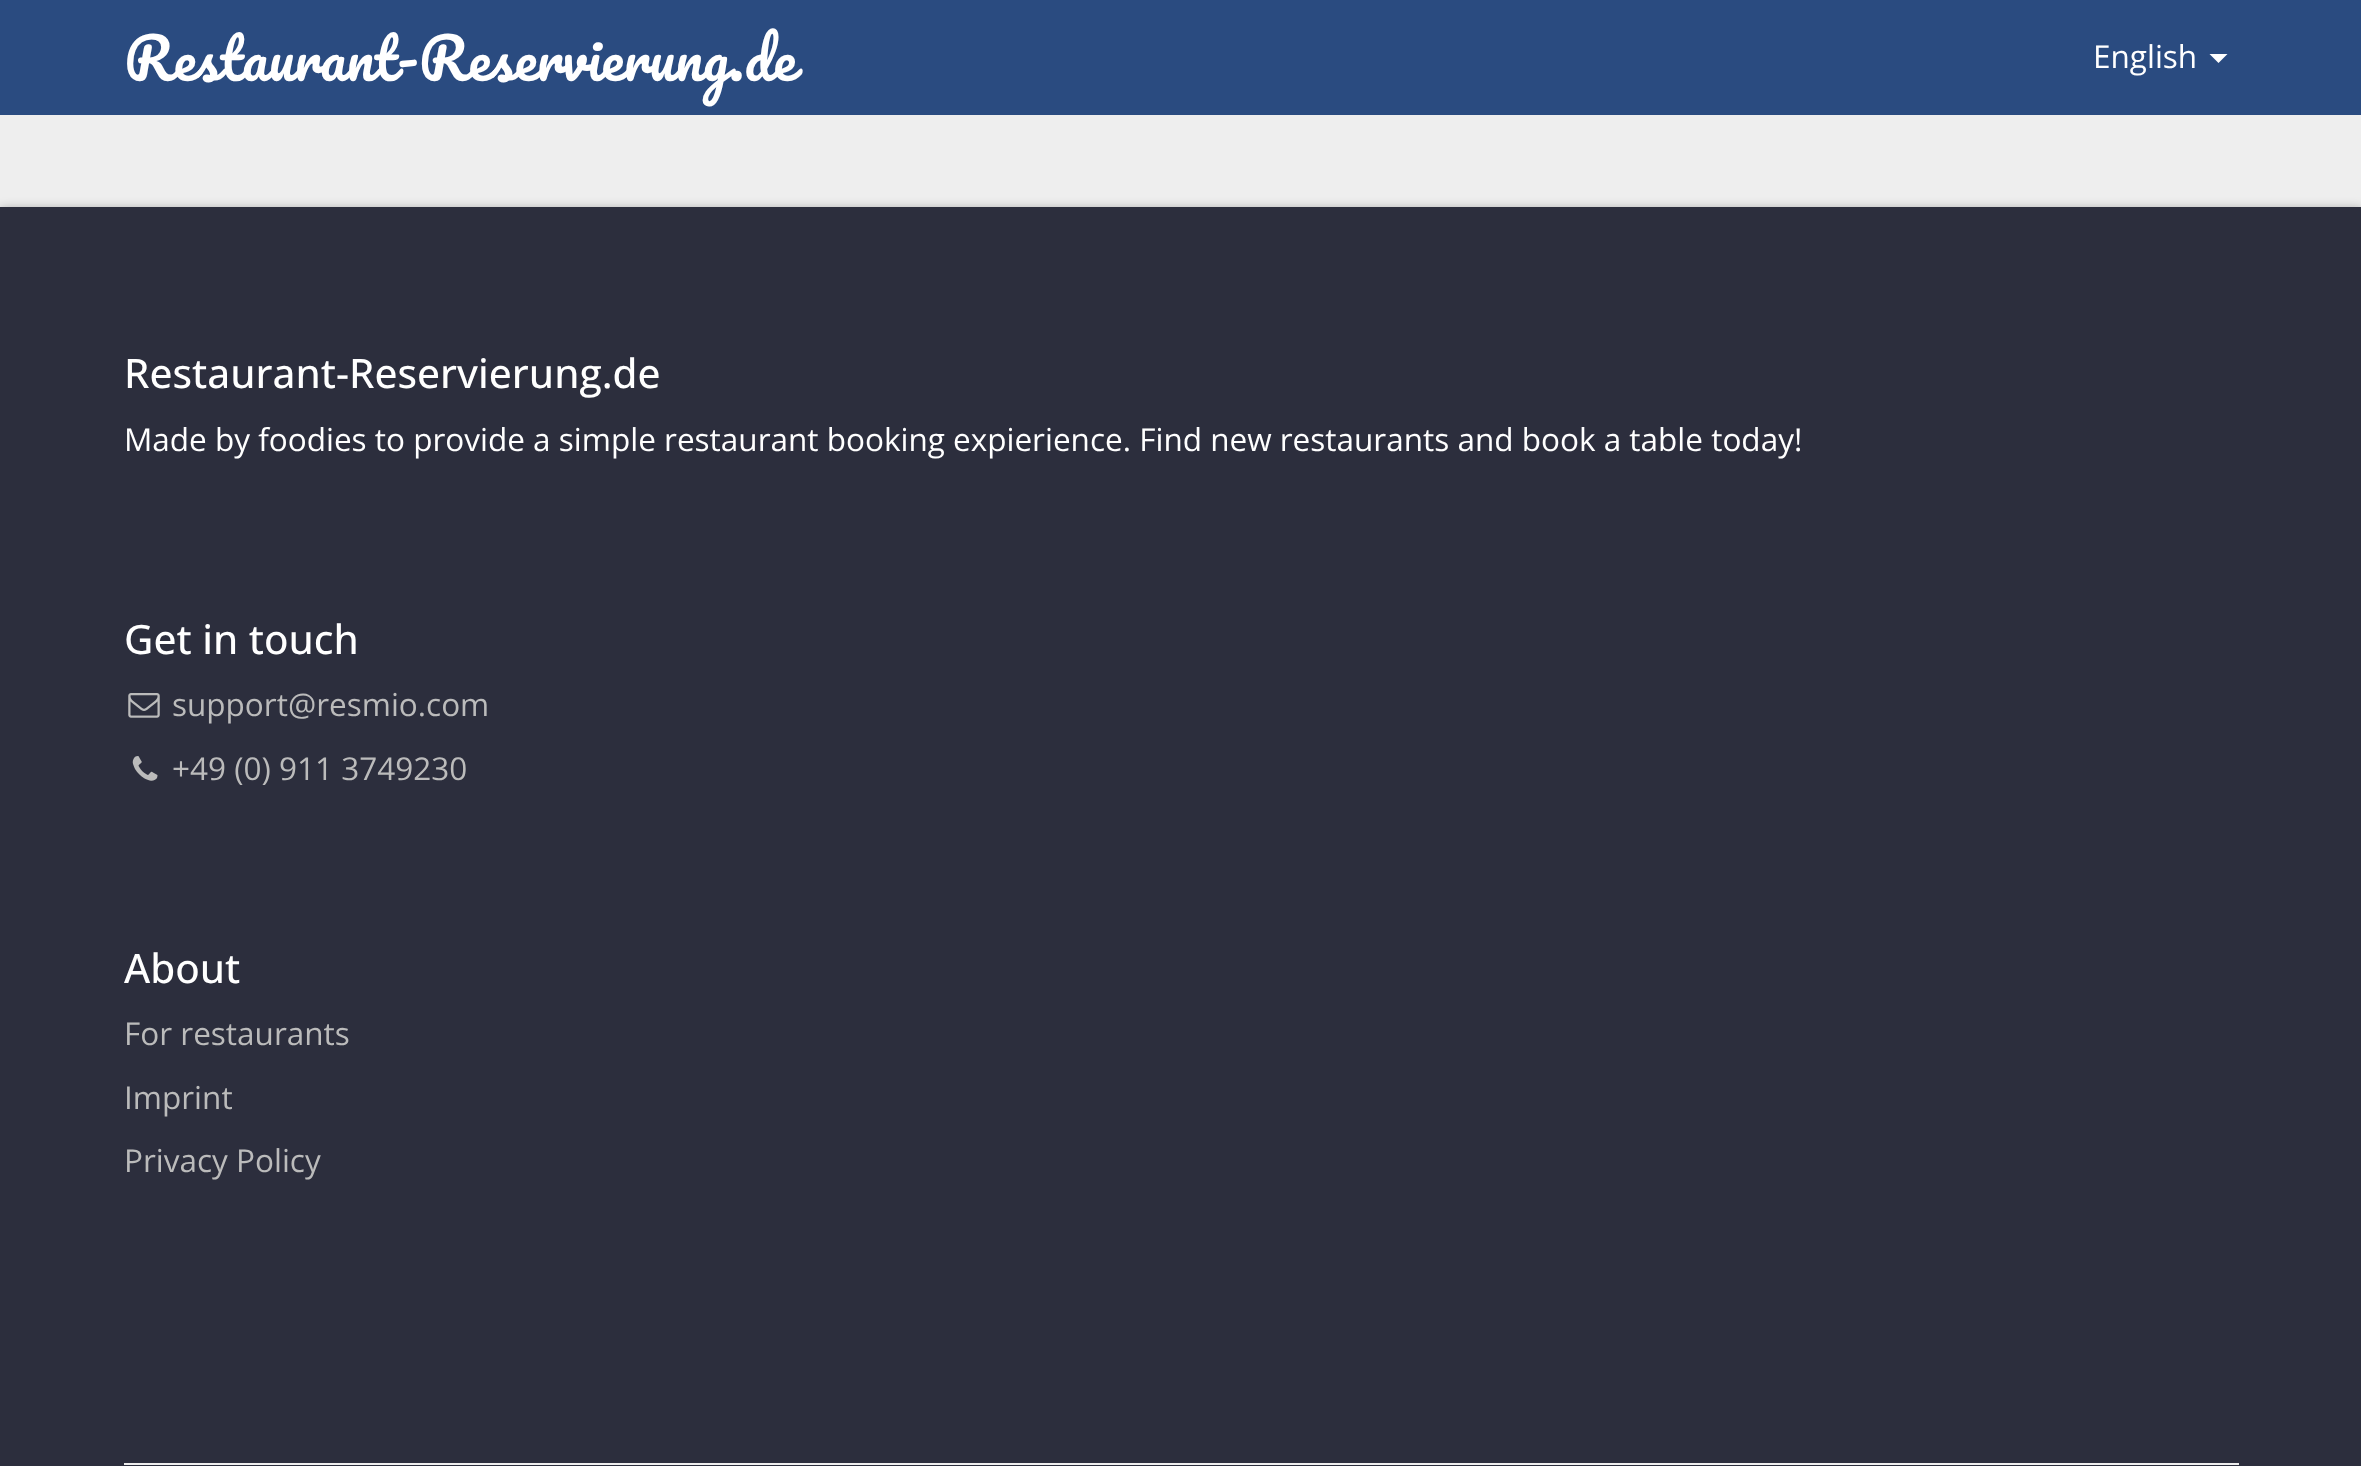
<?xml version="1.0" encoding="UTF-8"?>
<svg xmlns="http://www.w3.org/2000/svg" width="2361" height="1466">
    <style>*{font-kerning:none!important;font-variant-ligatures:none!important}</style>
    <defs>
        <filter id="blur1" x="-50%" y="-200%" width="200%" height="500%"><feGaussianBlur stdDeviation="5.5"/></filter>
    </defs>
    <rect width="100%" height="100%" fill="#EEEEEE"/>
    <rect x="0" y="0" width="2361" height="115" fill="#2A4B80"/>
    <text x="124" y="81" font-family="Pacifico" font-size="56.25" fill="#FFFFFF">Restaurant-Reservierung.de</text>
    <text x="2093" y="68" font-family="Open Sans" font-size="31.5" fill="#FFFFFF">English</text>
    <path d="M 2209.5 54 H 2227.5 L 2218.5 63 Z" fill="#FFFFFF"/>
    <rect x="0" y="209" width="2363" height="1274" fill="#000000" fill-opacity="0.35" filter="url(#blur1)"/>
    <rect x="0" y="207" width="2361" height="1259" fill="#2C2E3D"/>
    <text x="124" y="388" font-family="Open Sans" font-size="40.5" font-weight="500" fill="#FFFFFF">Restaurant-Reservierung.de</text>
    <text x="124" y="451" font-family="Open Sans" font-size="31.5" fill="#FFFFFF">Made by foodies to provide a simple restaurant booking expierience. Find new restaurants and book a table today!</text>
    <text x="124" y="654" font-family="Open Sans" font-size="40.5" font-weight="500" fill="#FFFFFF">Get in touch</text>
    <image x="128" y="693" width="32" height="25" href="img_01.png"/>
    <text x="172" y="716" font-family="Open Sans" font-size="31.5" fill="#BBBBBB">support@resmio.com</text>
    <image x="132" y="756" width="26" height="25" href="img_02.png"/>
    <text x="172" y="780" font-family="Open Sans" font-size="31.5" fill="#BBBBBB">+49 (0) 911 3749230</text>
    <text x="124" y="983" font-family="Open Sans" font-size="40.5" font-weight="500" fill="#FFFFFF">About</text>
    <text x="124" y="1045" font-family="Open Sans" font-size="31.5" fill="#BBBBBB">For restaurants</text>
    <text x="124" y="1109" font-family="Open Sans" font-size="31.5" fill="#BBBBBB">Imprint</text>
    <text x="124" y="1172" font-family="Open Sans" font-size="31.5" fill="#BBBBBB">Privacy Policy</text>
    <rect x="124" y="1463" width="2115" height="2" fill="#EEEEEE"/>
</svg>
